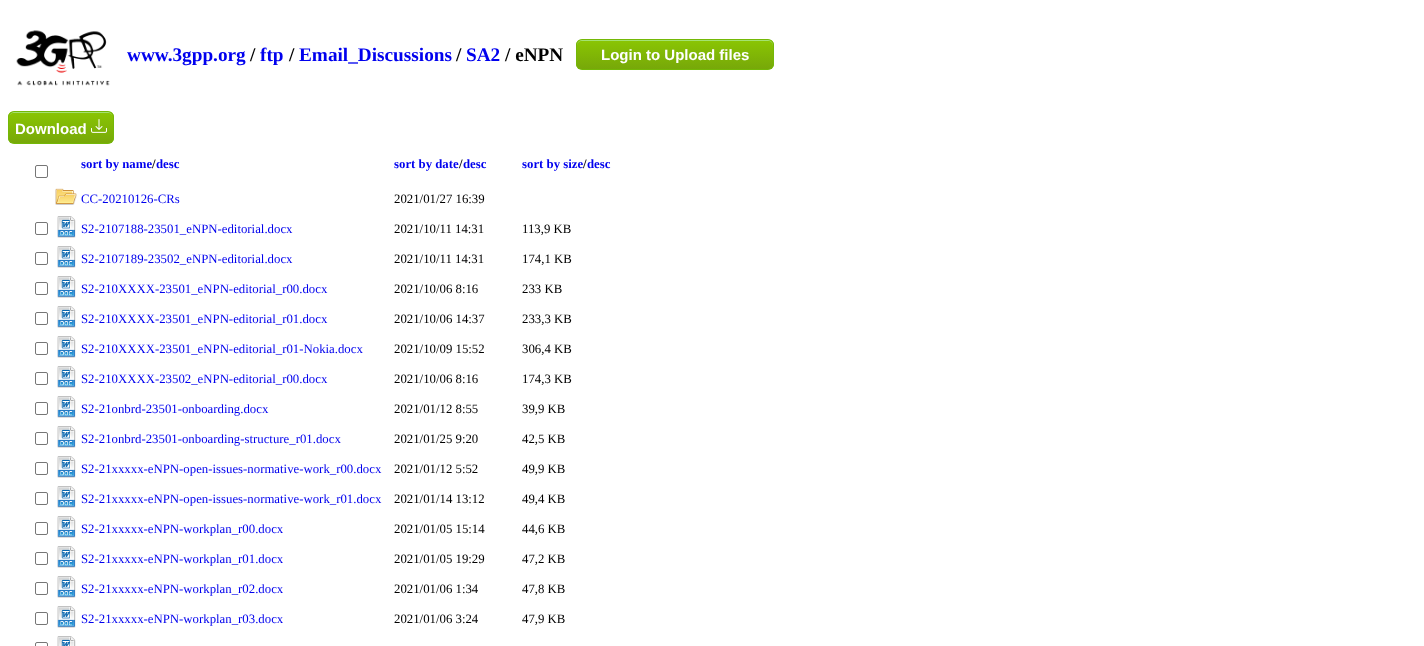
<?xml version="1.0" encoding="UTF-8"?>
<svg xmlns="http://www.w3.org/2000/svg" width="1424" height="646">
    <defs>
        <clipPath id="clip1"><rect x="576" y="39" width="198" height="31" rx="6"/></clipPath>
        <linearGradient id="g1" gradientUnits="userSpaceOnUse" x1="675" y1="40" x2="675" y2="69"><stop offset="0.05" stop-color="#89C403"/><stop offset="1" stop-color="#77A809"/></linearGradient>
        <clipPath id="clip2"><rect x="8" y="111" width="106" height="33" rx="6"/></clipPath>
        <linearGradient id="g2" gradientUnits="userSpaceOnUse" x1="61" y1="112" x2="61" y2="143"><stop offset="0.05" stop-color="#89C403"/><stop offset="1" stop-color="#77A809"/></linearGradient>
    </defs>
    <rect width="100%" height="100%" fill="#FFFFFF"/>
    <image x="16" y="30" width="94" height="56" href="img_01.png"/>
    <text x="127" y="61" font-family="Liberation Serif" font-size="19.25" font-weight="700" fill="#0000EE">www.3gpp.org</text>
    <text x="250" y="61" font-family="Liberation Serif" font-size="19.25" font-weight="700" fill="#000000">/</text>
    <text x="260" y="61" font-family="Liberation Serif" font-size="19.25" font-weight="700" fill="#0000EE">ftp</text>
    <text x="289" y="61" font-family="Liberation Serif" font-size="19.25" font-weight="700" fill="#000000">/</text>
    <text x="299" y="61" font-family="Liberation Serif" font-size="19.25" font-weight="700" fill="#0000EE">Email_Discussions</text>
    <text x="456" y="61" font-family="Liberation Serif" font-size="19.25" font-weight="700" fill="#000000">/</text>
    <text x="466" y="61" font-family="Liberation Serif" font-size="19.25" font-weight="700" fill="#0000EE">SA2</text>
    <text x="505" y="61" font-family="Liberation Serif" font-size="19.25" font-weight="700" fill="#000000">/ eNPN</text>
    <g clip-path="url(#clip1)">
        <rect x="576" y="40" width="198" height="29" fill="url(#g1)"/>
    </g>
    <path d="M 582 41 H 768 C 771 41 773 43 773 46 V 45 C 773 42 771 40 768 40 H 582 C 579 40 577 42 577 45 V 46 C 577 43 579 41 582 41 Z" fill="#A4E271"/>
    <rect x="576.5" y="39.5" width="197" height="30" rx="5.5" fill="none" stroke="#74B807"/>
    <text x="601" y="60" font-family="Liberation Sans" font-size="15" font-weight="700" fill="#FFFFFF">Login to Upload files</text>
    <g clip-path="url(#clip2)">
        <rect x="8" y="112" width="106" height="31" fill="url(#g2)"/>
    </g>
    <path d="M 14 113 H 108 C 111 113 113 115 113 118 C 113 108 98 112 92 112 H 30 C 24 112 9 108 9 118 C 9 115 11 113 14 113 Z" fill="#A4E271"/>
    <rect x="8.5" y="111.5" width="105" height="32" rx="5.5" fill="none" stroke="#74B807"/>
    <text x="15" y="134" font-family="Liberation Sans" font-size="15" font-weight="700" fill="#FFFFFF">Download</text>
    <image x="91" y="119" width="16" height="14" href="img_02.png"/>
    <rect x="35.5" y="165.5" width="12" height="12" rx="1.5" fill="none" stroke="#767676"/>
    <text x="81" y="168" font-family="Liberation Serif" font-size="12.8" font-weight="700" fill="#0000EE">sort by name</text>
    <text x="152" y="168" font-family="Liberation Serif" font-size="12.8" font-weight="700" fill="#000000">/</text>
    <text x="156" y="168" font-family="Liberation Serif" font-size="12.8" font-weight="700" fill="#0000EE">desc</text>
    <text x="394" y="168" font-family="Liberation Serif" font-size="12.8" font-weight="700" fill="#0000EE">sort by date</text>
    <text x="459" y="168" font-family="Liberation Serif" font-size="12.8" font-weight="700" fill="#000000">/</text>
    <text x="463" y="168" font-family="Liberation Serif" font-size="12.8" font-weight="700" fill="#0000EE">desc</text>
    <text x="522" y="168" font-family="Liberation Serif" font-size="12.8" font-weight="700" fill="#0000EE">sort by size</text>
    <text x="583" y="168" font-family="Liberation Serif" font-size="12.8" font-weight="700" fill="#000000">/</text>
    <text x="587" y="168" font-family="Liberation Serif" font-size="12.8" font-weight="700" fill="#0000EE">desc</text>
    <image x="55" y="188" width="22" height="17" href="img_03.png"/>
    <text x="81" y="203" font-family="Liberation Serif" font-size="12.8" fill="#0000EE">CC-20210126-CRs</text>
    <text x="394" y="203" font-family="Liberation Serif" font-size="12.8" fill="#000000">2021/01/27 16:39</text>
    <rect x="35.5" y="222.5" width="12" height="12" rx="1.5" fill="none" stroke="#767676"/>
    <image x="57" y="216" width="19" height="22" href="img_04.png"/>
    <text x="81" y="233" font-family="Liberation Serif" font-size="12.8" fill="#0000EE">S2-2107188-23501_eNPN-editorial.docx</text>
    <text x="394" y="233" font-family="Liberation Serif" font-size="12.8" fill="#000000">2021/10/11 14:31</text>
    <text x="522" y="233" font-family="Liberation Serif" font-size="12.8" fill="#000000">113,9 KB</text>
    <rect x="35.5" y="252.5" width="12" height="12" rx="1.5" fill="none" stroke="#767676"/>
    <image x="57" y="246" width="19" height="22" href="img_04.png"/>
    <text x="81" y="263" font-family="Liberation Serif" font-size="12.8" fill="#0000EE">S2-2107189-23502_eNPN-editorial.docx</text>
    <text x="394" y="263" font-family="Liberation Serif" font-size="12.8" fill="#000000">2021/10/11 14:31</text>
    <text x="522" y="263" font-family="Liberation Serif" font-size="12.8" fill="#000000">174,1 KB</text>
    <rect x="35.5" y="282.5" width="12" height="12" rx="1.5" fill="none" stroke="#767676"/>
    <image x="57" y="276" width="19" height="22" href="img_04.png"/>
    <text x="81" y="293" font-family="Liberation Serif" font-size="12.8" fill="#0000EE">S2-210XXXX-23501_eNPN-editorial_r00.docx</text>
    <text x="394" y="293" font-family="Liberation Serif" font-size="12.8" fill="#000000">2021/10/06 8:16</text>
    <text x="522" y="293" font-family="Liberation Serif" font-size="12.8" fill="#000000">233 KB</text>
    <rect x="35.5" y="312.5" width="12" height="12" rx="1.5" fill="none" stroke="#767676"/>
    <image x="57" y="306" width="19" height="22" href="img_04.png"/>
    <text x="81" y="323" font-family="Liberation Serif" font-size="12.8" fill="#0000EE">S2-210XXXX-23501_eNPN-editorial_r01.docx</text>
    <text x="394" y="323" font-family="Liberation Serif" font-size="12.8" fill="#000000">2021/10/06 14:37</text>
    <text x="522" y="323" font-family="Liberation Serif" font-size="12.8" fill="#000000">233,3 KB</text>
    <rect x="35.5" y="342.5" width="12" height="12" rx="1.5" fill="none" stroke="#767676"/>
    <image x="57" y="336" width="19" height="22" href="img_04.png"/>
    <text x="81" y="353" font-family="Liberation Serif" font-size="12.8" fill="#0000EE">S2-210XXXX-23501_eNPN-editorial_r01-Nokia.docx</text>
    <text x="394" y="353" font-family="Liberation Serif" font-size="12.8" fill="#000000">2021/10/09 15:52</text>
    <text x="522" y="353" font-family="Liberation Serif" font-size="12.8" fill="#000000">306,4 KB</text>
    <rect x="35.5" y="372.5" width="12" height="12" rx="1.5" fill="none" stroke="#767676"/>
    <image x="57" y="366" width="19" height="22" href="img_04.png"/>
    <text x="81" y="383" font-family="Liberation Serif" font-size="12.8" fill="#0000EE">S2-210XXXX-23502_eNPN-editorial_r00.docx</text>
    <text x="394" y="383" font-family="Liberation Serif" font-size="12.8" fill="#000000">2021/10/06 8:16</text>
    <text x="522" y="383" font-family="Liberation Serif" font-size="12.8" fill="#000000">174,3 KB</text>
    <rect x="35.5" y="402.5" width="12" height="12" rx="1.5" fill="none" stroke="#767676"/>
    <image x="57" y="396" width="19" height="22" href="img_04.png"/>
    <text x="81" y="413" font-family="Liberation Serif" font-size="12.8" fill="#0000EE">S2-21onbrd-23501-onboarding.docx</text>
    <text x="394" y="413" font-family="Liberation Serif" font-size="12.8" fill="#000000">2021/01/12 8:55</text>
    <text x="522" y="413" font-family="Liberation Serif" font-size="12.8" fill="#000000">39,9 KB</text>
    <rect x="35.5" y="432.5" width="12" height="12" rx="1.5" fill="none" stroke="#767676"/>
    <image x="57" y="426" width="19" height="22" href="img_04.png"/>
    <text x="81" y="443" font-family="Liberation Serif" font-size="12.8" fill="#0000EE">S2-21onbrd-23501-onboarding-structure_r01.docx</text>
    <text x="394" y="443" font-family="Liberation Serif" font-size="12.8" fill="#000000">2021/01/25 9:20</text>
    <text x="522" y="443" font-family="Liberation Serif" font-size="12.8" fill="#000000">42,5 KB</text>
    <rect x="35.5" y="462.5" width="12" height="12" rx="1.5" fill="none" stroke="#767676"/>
    <image x="57" y="456" width="19" height="22" href="img_04.png"/>
    <text x="81" y="473" font-family="Liberation Serif" font-size="12.8" fill="#0000EE">S2-21xxxxx-eNPN-open-issues-normative-work_r00.docx</text>
    <text x="394" y="473" font-family="Liberation Serif" font-size="12.8" fill="#000000">2021/01/12 5:52</text>
    <text x="522" y="473" font-family="Liberation Serif" font-size="12.8" fill="#000000">49,9 KB</text>
    <rect x="35.5" y="492.5" width="12" height="12" rx="1.5" fill="none" stroke="#767676"/>
    <image x="57" y="486" width="19" height="22" href="img_04.png"/>
    <text x="81" y="503" font-family="Liberation Serif" font-size="12.8" fill="#0000EE">S2-21xxxxx-eNPN-open-issues-normative-work_r01.docx</text>
    <text x="394" y="503" font-family="Liberation Serif" font-size="12.8" fill="#000000">2021/01/14 13:12</text>
    <text x="522" y="503" font-family="Liberation Serif" font-size="12.8" fill="#000000">49,4 KB</text>
    <rect x="35.5" y="522.5" width="12" height="12" rx="1.5" fill="none" stroke="#767676"/>
    <image x="57" y="516" width="19" height="22" href="img_04.png"/>
    <text x="81" y="533" font-family="Liberation Serif" font-size="12.8" fill="#0000EE">S2-21xxxxx-eNPN-workplan_r00.docx</text>
    <text x="394" y="533" font-family="Liberation Serif" font-size="12.8" fill="#000000">2021/01/05 15:14</text>
    <text x="522" y="533" font-family="Liberation Serif" font-size="12.8" fill="#000000">44,6 KB</text>
    <rect x="35.5" y="552.5" width="12" height="12" rx="1.5" fill="none" stroke="#767676"/>
    <image x="57" y="546" width="19" height="22" href="img_04.png"/>
    <text x="81" y="563" font-family="Liberation Serif" font-size="12.8" fill="#0000EE">S2-21xxxxx-eNPN-workplan_r01.docx</text>
    <text x="394" y="563" font-family="Liberation Serif" font-size="12.8" fill="#000000">2021/01/05 19:29</text>
    <text x="522" y="563" font-family="Liberation Serif" font-size="12.8" fill="#000000">47,2 KB</text>
    <rect x="35.5" y="582.5" width="12" height="12" rx="1.5" fill="none" stroke="#767676"/>
    <image x="57" y="576" width="19" height="22" href="img_04.png"/>
    <text x="81" y="593" font-family="Liberation Serif" font-size="12.8" fill="#0000EE">S2-21xxxxx-eNPN-workplan_r02.docx</text>
    <text x="394" y="593" font-family="Liberation Serif" font-size="12.8" fill="#000000">2021/01/06 1:34</text>
    <text x="522" y="593" font-family="Liberation Serif" font-size="12.8" fill="#000000">47,8 KB</text>
    <rect x="35.5" y="612.5" width="12" height="12" rx="1.5" fill="none" stroke="#767676"/>
    <image x="57" y="606" width="19" height="22" href="img_04.png"/>
    <text x="81" y="623" font-family="Liberation Serif" font-size="12.8" fill="#0000EE">S2-21xxxxx-eNPN-workplan_r03.docx</text>
    <text x="394" y="623" font-family="Liberation Serif" font-size="12.8" fill="#000000">2021/01/06 3:24</text>
    <text x="522" y="623" font-family="Liberation Serif" font-size="12.8" fill="#000000">47,9 KB</text>
    <rect x="35.5" y="642.5" width="12" height="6" rx="1.5" fill="none" stroke="#767676"/>
    <image x="57" y="636" width="19" height="10" href="img_05.png"/>
</svg>
